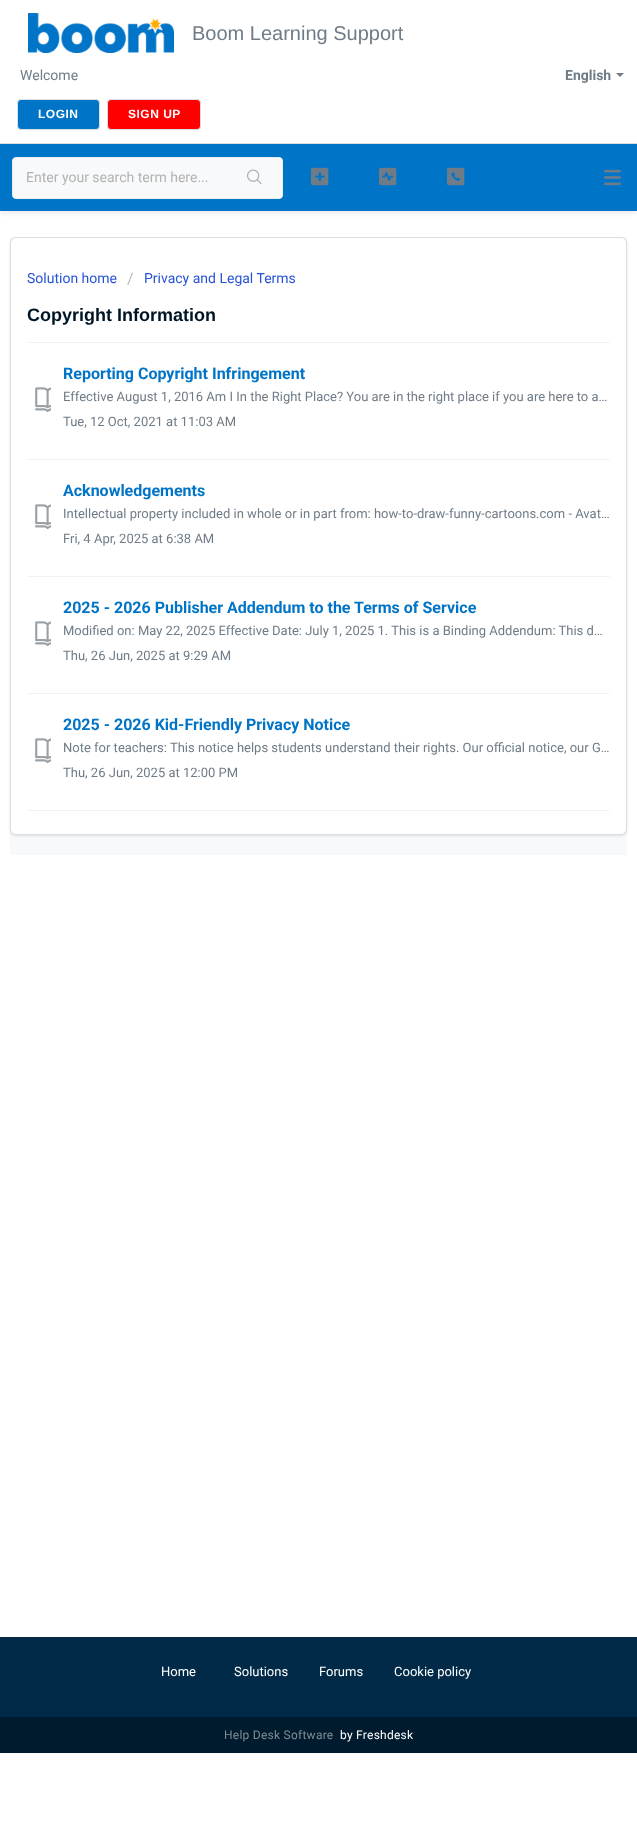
<?xml version="1.0" encoding="UTF-8"?>
<svg xmlns="http://www.w3.org/2000/svg" width="637" height="1828">
    <defs>
        <filter id="blur1" x="-50%" y="-200%" width="200%" height="500%"><feGaussianBlur stdDeviation="2"/></filter>
        <filter id="blur2" x="-50%" y="-200%" width="200%" height="500%"><feGaussianBlur stdDeviation="1"/></filter>
    </defs>
    <rect width="100%" height="100%" fill="#FFFFFF"/>
    <rect x="0" y="143" width="637" height="1" fill="#DADFE3"/>
    <image x="28" y="13" width="146" height="40" href="img_01.png"/>
    <text x="192" y="40" font-family="Liberation Sans" font-size="20" fill="#6F7C87">Boom Learning Support</text>
    <text x="20" y="80" font-family="Roboto" font-size="14" fill="#6F7C87">Welcome</text>
    <text x="565" y="80" font-family="Roboto" font-size="14" font-weight="700" fill="#6F7C87">English</text>
    <path d="M 616 73 H 624 L 620 77 Z" fill="#6F7C87"/>
    <rect x="17.5" y="99.5" width="82" height="30" rx="3.5" fill="#0074C7" stroke="#DADFE3"/>
    <text x="38" y="118" font-family="Liberation Sans" font-size="12" font-weight="700" letter-spacing="0.5" fill="#FFFFFF">LOGIN</text>
    <rect x="107.5" y="99.5" width="93" height="30" rx="3.5" fill="#FF0000" stroke="#DADFE3"/>
    <text x="128" y="118" font-family="Liberation Sans" font-size="12" font-weight="700" letter-spacing="0.5" fill="#FFFFFF">SIGN UP</text>
    <rect x="0" y="147" width="637" height="67" fill="#EEEEEE" filter="url(#blur1)"/>
    <rect x="0" y="144" width="637" height="67" fill="#0074C7"/>
    <image x="604" y="169" width="17" height="17" href="img_02.png"/>
    <rect x="12.5" y="157.5" width="270" height="41" rx="3.5" fill="#F8F9FA" stroke="#EBEEF0"/>
    <text x="26" y="182" font-family="Roboto" font-size="14" fill="#B2B2B2">Enter your search term here...</text>
    <rect x="228" y="158" width="54" height="40" rx="2" fill="#F8F9FA"/>
    <image x="247" y="169" width="15" height="15" href="img_03.png"/>
    <image x="311" y="167" width="18" height="19" href="img_04.png"/>
    <image x="379" y="167" width="18" height="19" href="img_05.png"/>
    <image x="447" y="167" width="18" height="19" href="img_06.png"/>
    <rect x="10" y="237" width="617" height="618" fill="#F8F9FA"/>
    <rect x="10" y="238" width="617" height="598" rx="6" fill="#3F3F44" fill-opacity="0.15" filter="url(#blur2)"/>
    <rect x="10.5" y="237.5" width="616" height="597" rx="5.5" fill="#FFFFFF" stroke="#DADFE3"/>
    <text x="27" y="283" font-family="Roboto" font-size="14" fill="#2753D7">Solution home</text>
    <text x="127" y="284" font-family="Roboto" font-size="16" fill="#BBBBBB">/</text>
    <text x="144" y="283" font-family="Roboto" font-size="14" fill="#2753D7">Privacy and Legal Terms</text>
    <text x="27" y="321" font-family="Liberation Sans" font-size="18" font-weight="700" fill="#001524">Copyright Information</text>
    <rect x="27" y="810" width="583" height="1" fill="#F3F3F3"/>
    <rect x="27" y="342" width="583" height="1" fill="#F3F3F3"/>
    <text x="63" y="379" font-family="Roboto" font-size="16" font-weight="700" fill="#0074C7">Reporting Copyright Infringement</text>
    <image x="35" y="387" width="16" height="26" href="img_07.png"/>
    <text font-family="Roboto" font-size="13" fill="#6F7C87">
        <tspan x="63" y="401">Effective August 1, 2016 Am I In the Right Place? You are in the right place if you are here to a…</tspan>
        <tspan x="63" y="426">Tue, 12 Oct, 2021 at 11:03 AM</tspan>
    </text>
    <rect x="27" y="459" width="583" height="1" fill="#F3F3F3"/>
    <text x="63" y="496" font-family="Roboto" font-size="16" font-weight="700" fill="#0074C7">Acknowledgements</text>
    <image x="35" y="504" width="16" height="26" href="img_07.png"/>
    <text font-family="Roboto" font-size="13" fill="#6F7C87">
        <tspan x="63" y="518">Intellectual property included in whole or in part from: how-to-draw-funny-cartoons.com - Avat…</tspan>
        <tspan x="63" y="543">Fri, 4 Apr, 2025 at 6:38 AM</tspan>
    </text>
    <rect x="27" y="576" width="583" height="1" fill="#F3F3F3"/>
    <text x="63" y="613" font-family="Roboto" font-size="16" font-weight="700" fill="#0074C7">2025 - 2026 Publisher Addendum to the Terms of Service</text>
    <image x="35" y="621" width="16" height="26" href="img_07.png"/>
    <text font-family="Roboto" font-size="13" fill="#6F7C87">
        <tspan x="63" y="635">Modified on: May 22, 2025 Effective Date: July 1, 2025 1. This is a Binding Addendum: This d…</tspan>
        <tspan x="63" y="660">Thu, 26 Jun, 2025 at 9:29 AM</tspan>
    </text>
    <rect x="27" y="693" width="583" height="1" fill="#F3F3F3"/>
    <text x="63" y="730" font-family="Roboto" font-size="16" font-weight="700" fill="#0074C7">2025 - 2026 Kid-Friendly Privacy Notice</text>
    <image x="35" y="738" width="16" height="26" href="img_07.png"/>
    <text font-family="Roboto" font-size="13" fill="#6F7C87">
        <tspan x="63" y="752">Note for teachers: This notice helps students understand their rights. Our official notice, our G…</tspan>
        <tspan x="63" y="777">Thu, 26 Jun, 2025 at 12:00 PM</tspan>
    </text>
    <rect x="0" y="1637" width="637" height="80" fill="#002A47"/>
    <text x="161" y="1676" font-family="Roboto" font-size="13" fill="#FFFFFF">Home</text>
    <text x="234" y="1676" font-family="Roboto" font-size="13" fill="#FFFFFF">Solutions</text>
    <text x="319" y="1676" font-family="Roboto" font-size="13" fill="#FFFFFF">Forums</text>
    <text x="394" y="1676" font-family="Roboto" font-size="13" fill="#FFFFFF">Cookie policy</text>
    <rect x="0" y="1717" width="637" height="36" fill="#001B2E"/>
    <text x="224" y="1739" font-family="Roboto" font-size="12" letter-spacing="0.25" fill="#808D97">Help Desk Software</text>
    <text x="340" y="1739" font-family="Roboto" font-size="12" letter-spacing="0.25" fill="#FFFFFF">by Freshdesk</text>
</svg>
